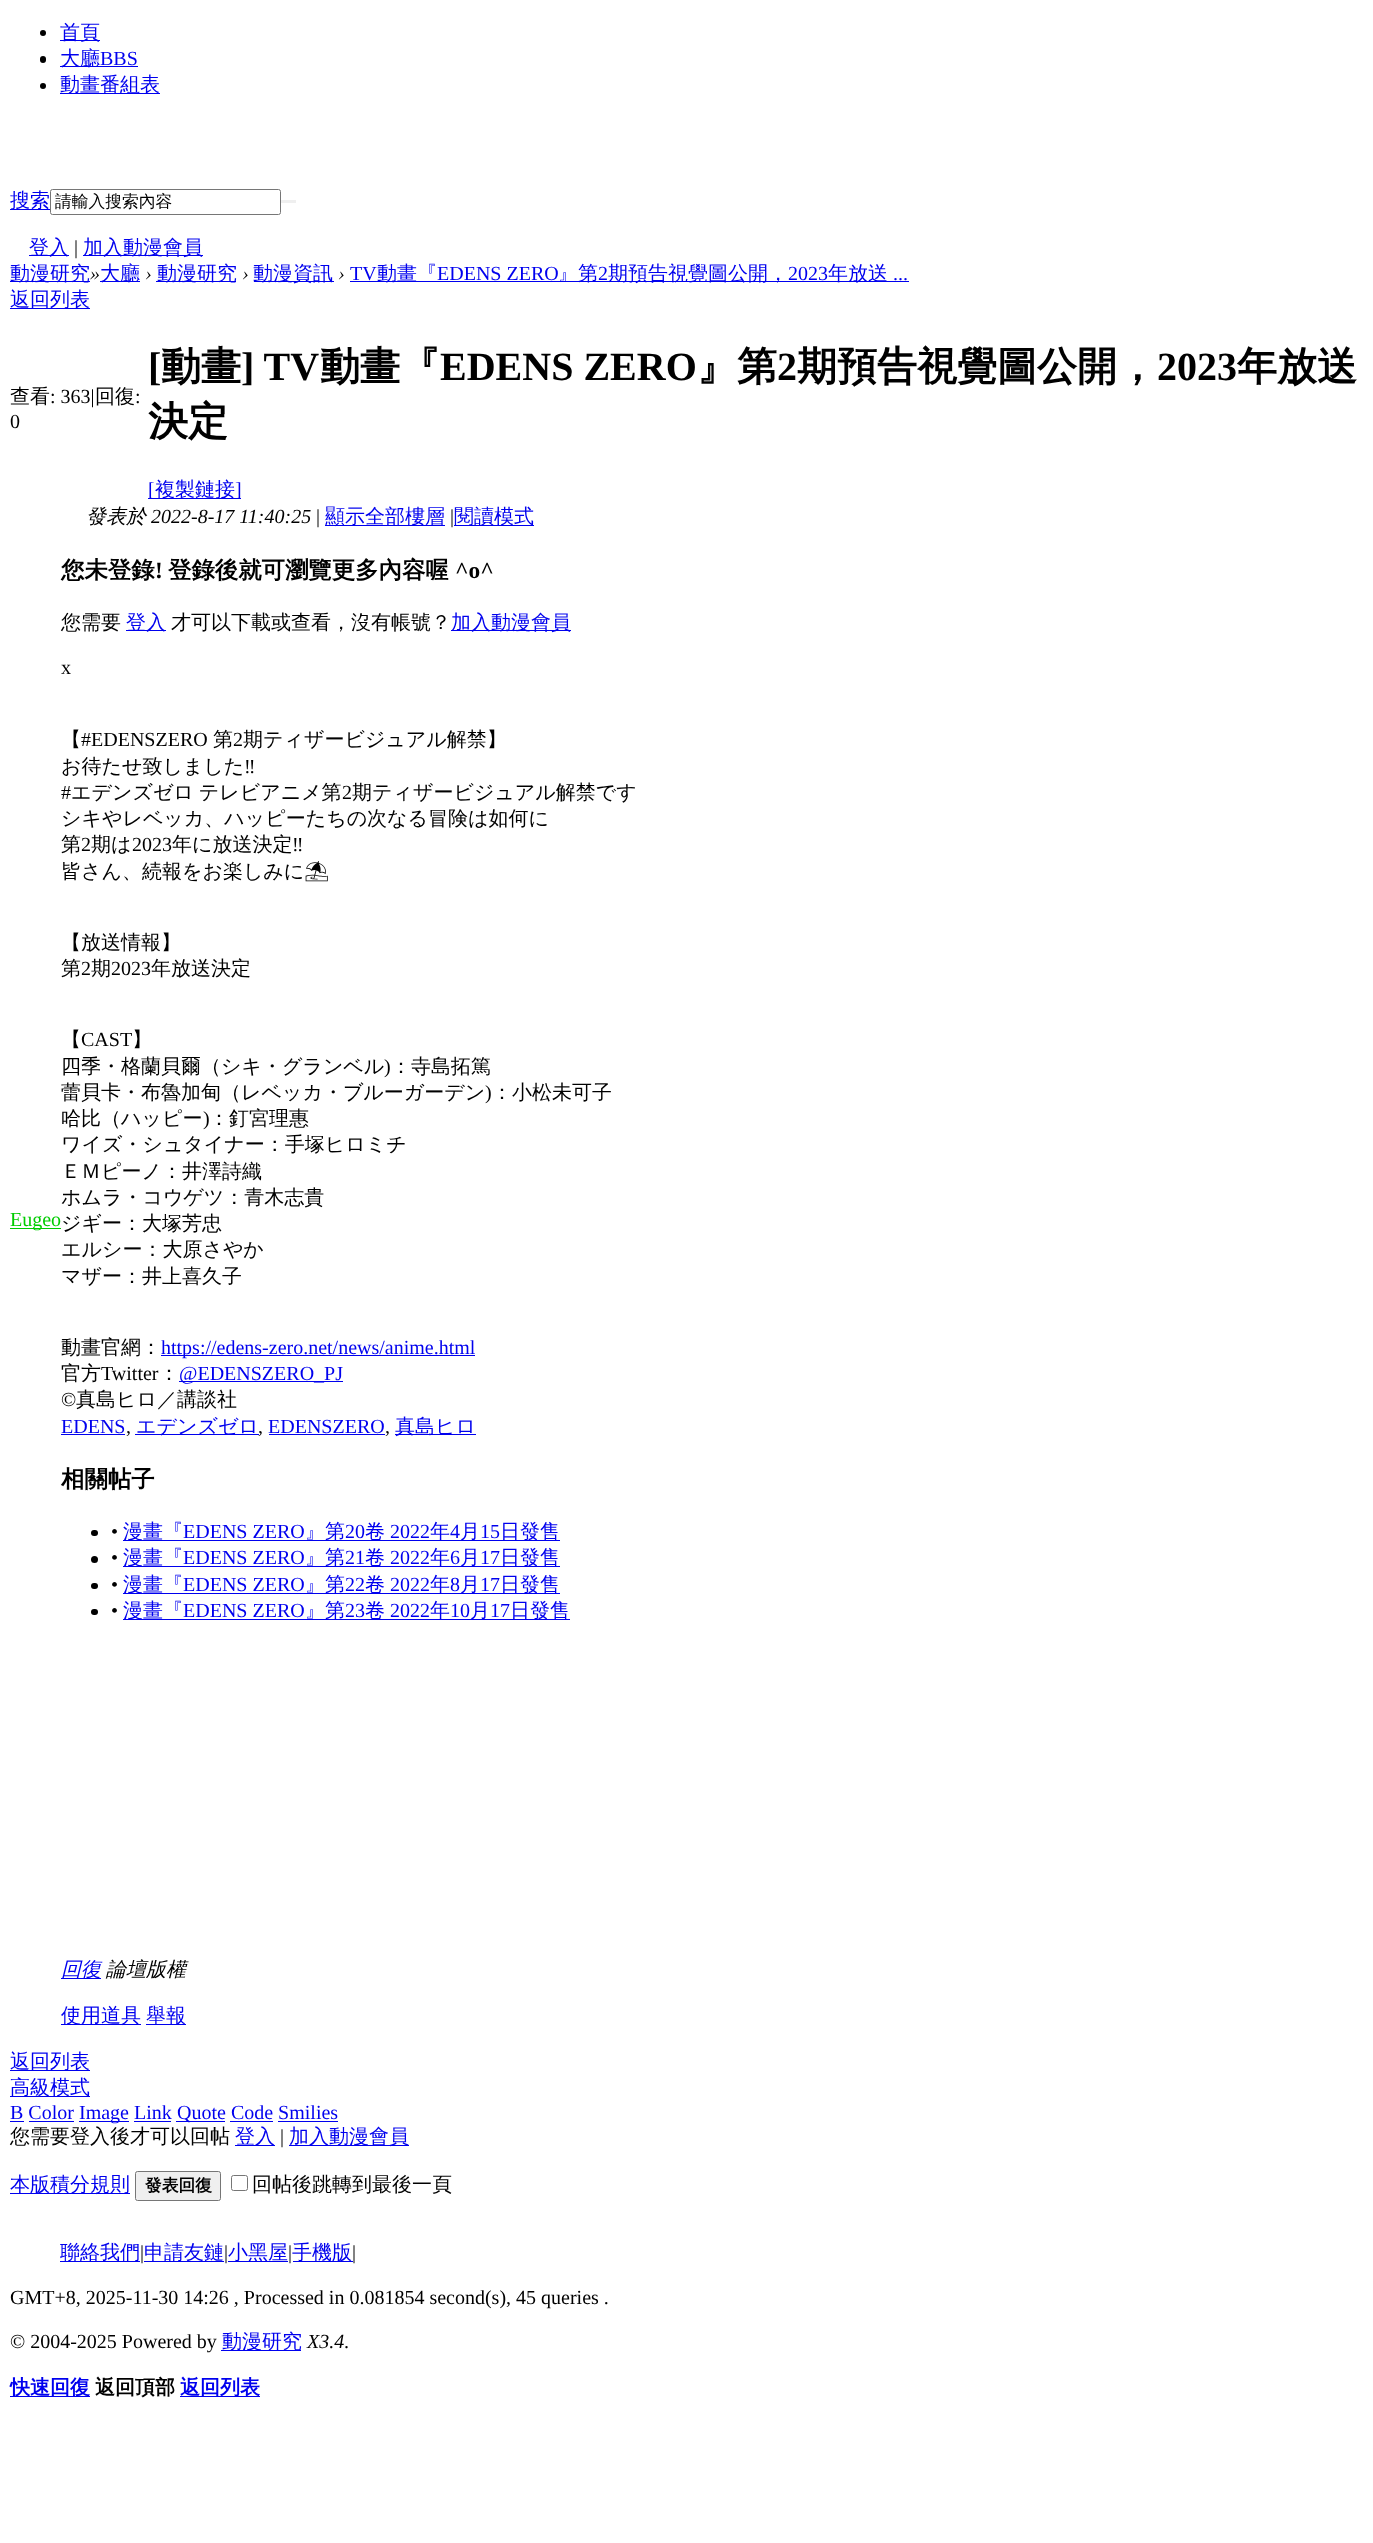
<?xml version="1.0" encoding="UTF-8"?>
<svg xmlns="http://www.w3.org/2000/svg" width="1373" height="2543">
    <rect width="100%" height="100%" fill="#FFFFFF"/>
    <circle cx="43" cy="33" r="3" fill="#000000"/>
    <rect x="60" y="40" width="40" height="1" fill="#0000EE"/>
    <text x="60" y="39" font-family="WenQuanYi Zen Hei" font-size="20" font-weight="500" fill="#0000EE">首頁</text>
    <rect x="40" y="56" width="6" height="7" rx="3" fill="#000000"/>
    <rect x="60" y="66" width="78" height="1" fill="#0000EE"/>
    <text x="60" y="65" font-family="WenQuanYi Zen Hei" font-size="20" font-weight="500" fill="#0000EE">大廳</text>
    <text x="100" y="65" font-family="Liberation Serif" font-size="20" fill="#0000EE">BBS</text>
    <circle cx="43" cy="86" r="3" fill="#000000"/>
    <rect x="60" y="93" width="100" height="1" fill="#0000EE"/>
    <text x="60" y="91" font-family="WenQuanYi Zen Hei" font-size="20" font-weight="500" fill="#0000EE">動畫番組表</text>
    <rect x="10" y="209" width="40" height="1" fill="#0000EE"/>
    <text x="10" y="207" font-family="WenQuanYi Zen Hei" font-size="20" font-weight="500" fill="#0000EE">搜索</text>
    <rect x="50.5" y="189.5" width="230" height="25" rx="2" fill="none" stroke="#767676"/>
    <text x="55" y="207" font-family="WenQuanYi Zen Hei" font-size="16.75" font-weight="500" fill="#000000">請輸入搜索內容</text>
    <rect x="281" y="200" width="15" height="3" fill="#EFEFEF"/>
    <rect x="29" y="255" width="40" height="1" fill="#0000EE"/>
    <text x="29" y="254" font-family="WenQuanYi Zen Hei" font-size="20" font-weight="500" fill="#0000EE">登入</text>
    <text x="74" y="254" font-family="Liberation Serif" font-size="20" fill="#000000">|</text>
    <rect x="83" y="255" width="120" height="1" fill="#0000EE"/>
    <text x="83" y="254" font-family="WenQuanYi Zen Hei" font-size="20" font-weight="500" fill="#0000EE">加入動漫會員</text>
    <rect x="10" y="281" width="80" height="1" fill="#0000EE"/>
    <text x="10" y="280" font-family="WenQuanYi Zen Hei" font-size="20" font-weight="500" fill="#0000EE">動漫研究</text>
    <text x="90" y="280" font-family="Liberation Serif" font-size="20" font-style="italic" fill="#000000">»</text>
    <rect x="100" y="281" width="40" height="1" fill="#0000EE"/>
    <text x="100" y="280" font-family="WenQuanYi Zen Hei" font-size="20" font-weight="500" fill="#0000EE">大廳</text>
    <text x="145" y="280" font-family="Liberation Serif" font-size="20" font-style="italic" fill="#000000">›</text>
    <rect x="156" y="281" width="80" height="1" fill="#0000EE"/>
    <text x="157" y="280" font-family="WenQuanYi Zen Hei" font-size="20" font-weight="500" fill="#0000EE">動漫研究</text>
    <text x="242" y="280" font-family="Liberation Serif" font-size="20" font-style="italic" fill="#000000">›</text>
    <rect x="254" y="281" width="80" height="1" fill="#0000EE"/>
    <text x="253" y="280" font-family="WenQuanYi Zen Hei" font-size="20" font-weight="500" fill="#0000EE">動漫資訊</text>
    <text x="338" y="280" font-family="Liberation Serif" font-size="20" font-style="italic" fill="#000000">›</text>
    <text x="350" y="280" font-family="Liberation Serif" font-size="20" fill="#0000EE">TV</text>
    <rect x="350" y="281" width="559" height="1" fill="#0000EE"/>
    <text x="377" y="280" font-family="WenQuanYi Zen Hei" font-size="20" font-weight="500" fill="#0000EE">動畫『</text>
    <text x="437" y="280" font-family="Liberation Serif" font-size="20" fill="#0000EE">EDENS ZERO</text>
    <text x="558" y="280" font-family="WenQuanYi Zen Hei" font-size="20" font-weight="500" fill="#0000EE">』第</text>
    <text x="598" y="280" font-family="Liberation Serif" font-size="20" fill="#0000EE">2</text>
    <text x="608" y="280" font-family="WenQuanYi Zen Hei" font-size="20" font-weight="500" fill="#0000EE">期預告視覺圖公開，</text>
    <text x="788" y="280" font-family="Liberation Serif" font-size="20" fill="#0000EE">2023</text>
    <text x="828" y="280" font-family="WenQuanYi Zen Hei" font-size="20" font-weight="500" fill="#0000EE">年放送</text>
    <text x="893" y="280" font-family="Liberation Serif" font-size="20" fill="#0000EE">...</text>
    <rect x="10" y="308" width="80" height="1" fill="#0000EE"/>
    <text x="10" y="306" font-family="WenQuanYi Zen Hei" font-size="20" font-weight="500" fill="#0000EE">返回列表</text>
    <text x="10" y="403" font-family="WenQuanYi Zen Hei" font-size="20" font-weight="500" fill="#000000">查看</text>
    <text x="50" y="403" font-family="Liberation Serif" font-size="20" fill="#000000">: 363|</text>
    <text x="95" y="403" font-family="WenQuanYi Zen Hei" font-size="20" font-weight="500" fill="#000000">回復</text>
    <text x="135" y="403" font-family="Liberation Serif" font-size="20" fill="#000000">:</text>
    <text x="10" y="428" font-family="Liberation Serif" font-size="20" fill="#000000">0</text>
    <text x="148" y="380" font-family="Liberation Serif" font-size="40" font-weight="700" fill="#000000">[</text>
    <text x="161" y="380" font-family="WenQuanYi Zen Hei" font-size="40" font-weight="700" fill="#000000">動畫</text>
    <text x="241" y="380" font-family="Liberation Serif" font-size="40" font-weight="700" fill="#000000">] TV</text>
    <text x="320" y="380" font-family="WenQuanYi Zen Hei" font-size="40" font-weight="700" fill="#000000">動畫『</text>
    <text x="440" y="380" font-family="Liberation Serif" font-size="40" font-weight="700" fill="#000000">EDENS ZERO</text>
    <text x="697" y="380" font-family="WenQuanYi Zen Hei" font-size="40" font-weight="700" fill="#000000">』第</text>
    <text x="777" y="380" font-family="Liberation Serif" font-size="40" font-weight="700" fill="#000000">2</text>
    <text x="797" y="380" font-family="WenQuanYi Zen Hei" font-size="40" font-weight="700" fill="#000000">期預告視覺圖公開，</text>
    <text x="1157" y="380" font-family="Liberation Serif" font-size="40" font-weight="700" fill="#000000">2023</text>
    <text x="1237" y="380" font-family="WenQuanYi Zen Hei" font-size="40" font-weight="700" fill="#000000">年放送</text>
    <text x="148" y="435" font-family="WenQuanYi Zen Hei" font-size="40" font-weight="700" fill="#000000">決定</text>
    <rect x="148" y="498" width="93" height="1" fill="#0000EE"/>
    <text x="148" y="496" font-family="Liberation Serif" font-size="20" fill="#0000EE">[</text>
    <text x="155" y="496" font-family="WenQuanYi Zen Hei" font-size="20" font-weight="500" fill="#0000EE">複製鏈接</text>
    <text x="235" y="496" font-family="Liberation Serif" font-size="20" fill="#0000EE">]</text>
    <rect x="10" y="1228" width="51" height="1" fill="#00CC00"/>
    <text x="10" y="1226" font-family="Liberation Serif" font-size="20" fill="#00CC00">Eugeo</text>
    <text x="86" y="523" font-family="WenQuanYi Zen Hei" font-size="20" font-weight="500" font-style="italic" fill="#000000">發表於</text>
    <text x="151" y="523" font-family="Liberation Serif" font-size="20" font-style="italic" fill="#000000">2022-8-17 11:40:25</text>
    <text x="316" y="523" font-family="Liberation Serif" font-size="20" fill="#000000">|</text>
    <rect x="325" y="525" width="120" height="1" fill="#0000EE"/>
    <text x="325" y="523" font-family="WenQuanYi Zen Hei" font-size="20" font-weight="500" fill="#0000EE">顯示全部樓層</text>
    <text x="450" y="523" font-family="Liberation Serif" font-size="20" fill="#000000">|</text>
    <rect x="454" y="525" width="80" height="1" fill="#0000EE"/>
    <text x="454" y="523" font-family="WenQuanYi Zen Hei" font-size="20" font-weight="500" fill="#0000EE">閱讀模式</text>
    <text x="61" y="578" font-family="WenQuanYi Zen Hei" font-size="23.4" font-weight="700" fill="#000000">您未登錄</text>
    <text x="155" y="578" font-family="Liberation Serif" font-size="23.4" font-weight="700" fill="#000000">!</text>
    <text x="168" y="578" font-family="WenQuanYi Zen Hei" font-size="23.4" font-weight="700" fill="#000000">登錄後就可瀏覽更多內容喔</text>
    <text x="455" y="578" font-family="Liberation Serif" font-size="23.4" font-weight="700" fill="#000000">^o^</text>
    <text x="61" y="629" font-family="WenQuanYi Zen Hei" font-size="20" font-weight="500" fill="#000000">您需要</text>
    <rect x="126" y="630" width="40" height="1" fill="#0000EE"/>
    <text x="126" y="629" font-family="WenQuanYi Zen Hei" font-size="20" font-weight="500" fill="#0000EE">登入</text>
    <text x="171" y="629" font-family="WenQuanYi Zen Hei" font-size="20" font-weight="500" fill="#000000">才可以下載或查看，沒有帳號？</text>
    <rect x="451" y="630" width="120" height="1" fill="#0000EE"/>
    <text x="451" y="629" font-family="WenQuanYi Zen Hei" font-size="20" font-weight="500" fill="#0000EE">加入動漫會員</text>
    <text x="61" y="674" font-family="Liberation Serif" font-size="20" fill="#000000">x</text>
    <text x="61" y="746" font-family="WenQuanYi Zen Hei" font-size="20" font-weight="500" fill="#000000">【</text>
    <text x="81" y="746" font-family="Liberation Serif" font-size="20" fill="#000000">#EDENSZERO</text>
    <text x="213" y="746" font-family="WenQuanYi Zen Hei" font-size="20" font-weight="500" fill="#000000">第</text>
    <text x="233" y="746" font-family="Liberation Serif" font-size="20" fill="#000000">2</text>
    <text x="243" y="746" font-family="WenQuanYi Zen Hei" font-size="20" font-weight="500" fill="#000000">期ティザービジュアル解禁】</text>
    <text x="61" y="773" font-family="WenQuanYi Zen Hei" font-size="20" font-weight="500" fill="#000000">お待たせ致しました</text>
    <text x="244" y="773" font-family="Liberation Serif" font-size="20" fill="#000000">‼</text>
    <text x="61" y="799" font-family="Liberation Serif" font-size="20" fill="#000000">#</text>
    <text x="71" y="799" word-spacing="-1" font-family="WenQuanYi Zen Hei" font-size="20" font-weight="500" fill="#000000">エデンズゼロ テレビアニメ第</text>
    <text x="342" y="799" font-family="Liberation Serif" font-size="20" fill="#000000">2</text>
    <text x="352" y="799" font-family="WenQuanYi Zen Hei" font-size="20" font-weight="500" fill="#000000">期ティザービジュアル解禁です</text>
    <text font-family="WenQuanYi Zen Hei" font-size="20" font-weight="500" fill="#000000">
        <tspan x="61" y="825">シキやレベッカ、ハッピーたちの次なる冒険は如何に</tspan>
        <tspan x="61" y="851">第</tspan>
    </text>
    <text x="81" y="851" font-family="Liberation Serif" font-size="20" fill="#000000">2</text>
    <text x="91" y="851" font-family="WenQuanYi Zen Hei" font-size="20" font-weight="500" fill="#000000">期は</text>
    <text x="132" y="851" font-family="Liberation Serif" font-size="20" fill="#000000">2023</text>
    <text x="172" y="851" font-family="WenQuanYi Zen Hei" font-size="20" font-weight="500" fill="#000000">年に放送決定</text>
    <text x="292" y="851" font-family="Liberation Serif" font-size="20" fill="#000000">‼</text>
    <text x="61" y="878" font-family="WenQuanYi Zen Hei" font-size="20" font-weight="500" fill="#000000">皆さん、続報をお楽しみに</text>
    <text x="304" y="878" font-family="Noto Emoji" font-size="20" fill="#000000">⛱</text>
    <text font-family="WenQuanYi Zen Hei" font-size="20" font-weight="500" fill="#000000">
        <tspan x="61" y="949">【放送情報】</tspan>
        <tspan x="61" y="975">第</tspan>
    </text>
    <text x="81" y="975" font-family="Liberation Serif" font-size="20" fill="#000000">2</text>
    <text x="91" y="975" font-family="WenQuanYi Zen Hei" font-size="20" font-weight="500" fill="#000000">期</text>
    <text x="111" y="975" font-family="Liberation Serif" font-size="20" fill="#000000">2023</text>
    <text x="151" y="975" font-family="WenQuanYi Zen Hei" font-size="20" font-weight="500" fill="#000000">年放送決定</text>
    <text x="61" y="1046" font-family="WenQuanYi Zen Hei" font-size="20" font-weight="500" fill="#000000">【</text>
    <text x="81" y="1046" font-family="Liberation Serif" font-size="20" fill="#000000">CAST</text>
    <text x="132" y="1046" font-family="WenQuanYi Zen Hei" font-size="20" font-weight="500" fill="#000000">】</text>
    <text x="61" y="1073" font-family="WenQuanYi Zen Hei" font-size="20" font-weight="500" fill="#000000">四季・格蘭貝爾（シキ・グランベル</text>
    <text x="384" y="1073" font-family="Liberation Serif" font-size="20" fill="#000000">)</text>
    <text x="391" y="1073" font-family="WenQuanYi Zen Hei" font-size="20" font-weight="500" fill="#000000">：寺島拓篤</text>
    <text x="61" y="1099" font-family="WenQuanYi Zen Hei" font-size="20" font-weight="500" fill="#000000">蕾貝卡・布魯加甸（レベッカ・ブルーガーデン</text>
    <text x="485" y="1099" font-family="Liberation Serif" font-size="20" fill="#000000">)</text>
    <text x="492" y="1099" font-family="WenQuanYi Zen Hei" font-size="20" font-weight="500" fill="#000000">：小松未可子</text>
    <text x="61" y="1125" font-family="WenQuanYi Zen Hei" font-size="20" font-weight="500" fill="#000000">哈比（ハッピー</text>
    <text x="203" y="1125" font-family="Liberation Serif" font-size="20" fill="#000000">)</text>
    <text x="209" y="1125" font-family="WenQuanYi Zen Hei" font-size="20" font-weight="500" fill="#000000">：釘宮理惠</text>
    <text font-family="WenQuanYi Zen Hei" font-size="20" font-weight="500" fill="#000000">
        <tspan x="61" y="1151">ワイズ・シュタイナー：手塚ヒロミチ</tspan>
        <tspan x="61" y="1178">ＥＭピーノ：井澤詩織</tspan>
        <tspan x="61" y="1204">ホムラ・コウゲツ：青木志貴</tspan>
        <tspan x="61" y="1230">ジギー：大塚芳忠</tspan>
        <tspan x="61" y="1256">エルシー：大原さやか</tspan>
        <tspan x="61" y="1283">マザー：井上喜久子</tspan>
    </text>
    <text x="61" y="1354" font-family="WenQuanYi Zen Hei" font-size="20" font-weight="500" fill="#000000">動畫官網：</text>
    <rect x="161" y="1355" width="314" height="1" fill="#0000EE"/>
    <text x="161" y="1354" font-family="Liberation Serif" font-size="20" fill="#0000EE">https://edens-zero.net/news/anime.html</text>
    <text x="61" y="1380" font-family="WenQuanYi Zen Hei" font-size="20" font-weight="500" fill="#000000">官方</text>
    <text x="101" y="1380" font-family="Liberation Serif" font-size="20" fill="#000000">Twitter</text>
    <text x="159" y="1380" font-family="WenQuanYi Zen Hei" font-size="20" font-weight="500" fill="#000000">：</text>
    <rect x="179" y="1381" width="164" height="1" fill="#0000EE"/>
    <text x="179" y="1380" font-family="Liberation Serif" font-size="20" fill="#0000EE">@EDENSZERO_PJ</text>
    <text x="61" y="1406" font-family="Liberation Serif" font-size="20" fill="#000000">©</text>
    <text x="76" y="1406" font-family="WenQuanYi Zen Hei" font-size="20" font-weight="500" fill="#000000">真島ヒロ／講談社</text>
    <text x="61" y="1433" font-family="Liberation Serif" font-size="20" fill="#0000EE">EDENS</text>
    <rect x="61" y="1434" width="64" height="1" fill="#0000EE"/>
    <text x="126" y="1433" font-family="Liberation Serif" font-size="20" fill="#000000">,</text>
    <rect x="135" y="1434" width="124" height="1" fill="#0000EE"/>
    <text x="136" y="1433" font-family="WenQuanYi Zen Hei" font-size="20" font-weight="500" fill="#0000EE">エデンズゼロ</text>
    <text x="258" y="1433" font-family="Liberation Serif" font-size="20" fill="#000000">,</text>
    <text x="268" y="1433" font-family="Liberation Serif" font-size="20" fill="#0000EE">EDENSZERO</text>
    <rect x="269" y="1434" width="116" height="1" fill="#0000EE"/>
    <text x="385" y="1433" font-family="Liberation Serif" font-size="20" fill="#000000">,</text>
    <rect x="395" y="1434" width="81" height="1" fill="#0000EE"/>
    <text x="395" y="1433" font-family="WenQuanYi Zen Hei" font-size="20" font-weight="500" fill="#0000EE">真島ヒロ</text>
    <text x="61" y="1487" font-family="WenQuanYi Zen Hei" font-size="23.4" font-weight="700" fill="#000000">相關帖子</text>
    <rect x="91" y="1530" width="7" height="6" rx="3" fill="#000000"/>
    <text x="111" y="1538" font-family="Liberation Serif" font-size="20" fill="#000000">•</text>
    <rect x="123" y="1540" width="437" height="1" fill="#0000EE"/>
    <text x="123" y="1538" font-family="WenQuanYi Zen Hei" font-size="20" font-weight="500" fill="#0000EE">漫畫『</text>
    <text x="183" y="1538" font-family="Liberation Serif" font-size="20" fill="#0000EE">EDENS ZERO</text>
    <text x="305" y="1538" font-family="WenQuanYi Zen Hei" font-size="20" font-weight="500" fill="#0000EE">』第</text>
    <text x="345" y="1538" font-family="Liberation Serif" font-size="20" fill="#0000EE">20</text>
    <text x="365" y="1538" font-family="WenQuanYi Zen Hei" font-size="20" font-weight="500" fill="#0000EE">卷</text>
    <text x="390" y="1538" font-family="Liberation Serif" font-size="20" fill="#0000EE">2022</text>
    <text x="430" y="1538" font-family="WenQuanYi Zen Hei" font-size="20" font-weight="500" fill="#0000EE">年</text>
    <text x="450" y="1538" font-family="Liberation Serif" font-size="20" fill="#0000EE">4</text>
    <text x="460" y="1538" font-family="WenQuanYi Zen Hei" font-size="20" font-weight="500" fill="#0000EE">月</text>
    <text x="480" y="1538" font-family="Liberation Serif" font-size="20" fill="#0000EE">15</text>
    <text x="500" y="1538" font-family="WenQuanYi Zen Hei" font-size="20" font-weight="500" fill="#0000EE">日發售</text>
    <circle cx="94.5" cy="1559.5" r="3.5" fill="#000000"/>
    <text x="111" y="1564" font-family="Liberation Serif" font-size="20" fill="#000000">•</text>
    <rect x="123" y="1566" width="437" height="1" fill="#0000EE"/>
    <text x="123" y="1564" font-family="WenQuanYi Zen Hei" font-size="20" font-weight="500" fill="#0000EE">漫畫『</text>
    <text x="183" y="1564" font-family="Liberation Serif" font-size="20" fill="#0000EE">EDENS ZERO</text>
    <text x="305" y="1564" font-family="WenQuanYi Zen Hei" font-size="20" font-weight="500" fill="#0000EE">』第</text>
    <text x="345" y="1564" font-family="Liberation Serif" font-size="20" fill="#0000EE">21</text>
    <text x="365" y="1564" font-family="WenQuanYi Zen Hei" font-size="20" font-weight="500" fill="#0000EE">卷</text>
    <text x="390" y="1564" font-family="Liberation Serif" font-size="20" fill="#0000EE">2022</text>
    <text x="430" y="1564" font-family="WenQuanYi Zen Hei" font-size="20" font-weight="500" fill="#0000EE">年</text>
    <text x="450" y="1564" font-family="Liberation Serif" font-size="20" fill="#0000EE">6</text>
    <text x="460" y="1564" font-family="WenQuanYi Zen Hei" font-size="20" font-weight="500" fill="#0000EE">月</text>
    <text x="480" y="1564" font-family="Liberation Serif" font-size="20" fill="#0000EE">17</text>
    <text x="500" y="1564" font-family="WenQuanYi Zen Hei" font-size="20" font-weight="500" fill="#0000EE">日發售</text>
    <rect x="91" y="1583" width="7" height="6" rx="3" fill="#000000"/>
    <text x="111" y="1591" font-family="Liberation Serif" font-size="20" fill="#000000">•</text>
    <rect x="123" y="1593" width="437" height="1" fill="#0000EE"/>
    <text x="123" y="1591" font-family="WenQuanYi Zen Hei" font-size="20" font-weight="500" fill="#0000EE">漫畫『</text>
    <text x="183" y="1591" font-family="Liberation Serif" font-size="20" fill="#0000EE">EDENS ZERO</text>
    <text x="305" y="1591" font-family="WenQuanYi Zen Hei" font-size="20" font-weight="500" fill="#0000EE">』第</text>
    <text x="345" y="1591" font-family="Liberation Serif" font-size="20" fill="#0000EE">22</text>
    <text x="365" y="1591" font-family="WenQuanYi Zen Hei" font-size="20" font-weight="500" fill="#0000EE">卷</text>
    <text x="390" y="1591" font-family="Liberation Serif" font-size="20" fill="#0000EE">2022</text>
    <text x="430" y="1591" font-family="WenQuanYi Zen Hei" font-size="20" font-weight="500" fill="#0000EE">年</text>
    <text x="450" y="1591" font-family="Liberation Serif" font-size="20" fill="#0000EE">8</text>
    <text x="460" y="1591" font-family="WenQuanYi Zen Hei" font-size="20" font-weight="500" fill="#0000EE">月</text>
    <text x="480" y="1591" font-family="Liberation Serif" font-size="20" fill="#0000EE">17</text>
    <text x="500" y="1591" font-family="WenQuanYi Zen Hei" font-size="20" font-weight="500" fill="#0000EE">日發售</text>
    <rect x="91" y="1609" width="7" height="6" rx="3" fill="#000000"/>
    <text x="111" y="1617" font-family="Liberation Serif" font-size="20" fill="#000000">•</text>
    <rect x="123" y="1619" width="447" height="1" fill="#0000EE"/>
    <text x="123" y="1617" font-family="WenQuanYi Zen Hei" font-size="20" font-weight="500" fill="#0000EE">漫畫『</text>
    <text x="183" y="1617" font-family="Liberation Serif" font-size="20" fill="#0000EE">EDENS ZERO</text>
    <text x="305" y="1617" font-family="WenQuanYi Zen Hei" font-size="20" font-weight="500" fill="#0000EE">』第</text>
    <text x="345" y="1617" font-family="Liberation Serif" font-size="20" fill="#0000EE">23</text>
    <text x="365" y="1617" font-family="WenQuanYi Zen Hei" font-size="20" font-weight="500" fill="#0000EE">卷</text>
    <text x="390" y="1617" font-family="Liberation Serif" font-size="20" fill="#0000EE">2022</text>
    <text x="430" y="1617" font-family="WenQuanYi Zen Hei" font-size="20" font-weight="500" fill="#0000EE">年</text>
    <text x="450" y="1617" font-family="Liberation Serif" font-size="20" fill="#0000EE">10</text>
    <text x="470" y="1617" font-family="WenQuanYi Zen Hei" font-size="20" font-weight="500" fill="#0000EE">月</text>
    <text x="490" y="1617" font-family="Liberation Serif" font-size="20" fill="#0000EE">17</text>
    <text x="510" y="1617" font-family="WenQuanYi Zen Hei" font-size="20" font-weight="500" fill="#0000EE">日發售</text>
    <rect x="61" y="1978" width="40" height="1" fill="#0000EE"/>
    <text x="61" y="1976" font-family="WenQuanYi Zen Hei" font-size="20" font-weight="500" font-style="italic" fill="#0000EE">回復</text>
    <text x="106" y="1976" font-family="WenQuanYi Zen Hei" font-size="20" font-weight="500" font-style="italic" fill="#000000">論壇版權</text>
    <rect x="61" y="2024" width="80" height="1" fill="#0000EE"/>
    <text x="61" y="2022" font-family="WenQuanYi Zen Hei" font-size="20" font-weight="500" fill="#0000EE">使用道具</text>
    <rect x="146" y="2024" width="40" height="1" fill="#0000EE"/>
    <text x="146" y="2022" font-family="WenQuanYi Zen Hei" font-size="20" font-weight="500" fill="#0000EE">舉報</text>
    <rect x="10" y="2070" width="80" height="1" fill="#0000EE"/>
    <text x="10" y="2068" font-family="WenQuanYi Zen Hei" font-size="20" font-weight="500" fill="#0000EE">返回列表</text>
    <rect x="10" y="2096" width="80" height="1" fill="#0000EE"/>
    <text x="10" y="2094" font-family="WenQuanYi Zen Hei" font-size="20" font-weight="500" fill="#0000EE">高級模式</text>
    <text x="10" y="2119" font-family="Liberation Serif" font-size="20" fill="#0000EE">B Color</text>
    <rect x="10" y="2121" width="14" height="1" fill="#0000EE"/>
    <rect x="79" y="2121" width="50" height="1" fill="#0000EE"/>
    <text x="79" y="2119" font-family="Liberation Serif" font-size="20" fill="#0000EE">Image Link</text>
    <rect x="176" y="2121" width="49" height="1" fill="#0000EE"/>
    <text x="177" y="2119" font-family="Liberation Serif" font-size="20" fill="#0000EE">Quote Code Smilies</text>
    <rect x="29" y="2121" width="45" height="1" fill="#0000EE"/>
    <rect x="134" y="2121" width="37" height="1" fill="#0000EE"/>
    <rect x="230" y="2121" width="43" height="1" fill="#0000EE"/>
    <rect x="278" y="2121" width="60" height="1" fill="#0000EE"/>
    <text x="10" y="2143" font-family="WenQuanYi Zen Hei" font-size="20" font-weight="500" fill="#000000">您需要登入後才可以回帖</text>
    <rect x="235" y="2145" width="40" height="1" fill="#0000EE"/>
    <text x="235" y="2143" font-family="WenQuanYi Zen Hei" font-size="20" font-weight="500" fill="#0000EE">登入</text>
    <text x="280" y="2143" font-family="Liberation Serif" font-size="20" fill="#000000">|</text>
    <rect x="289" y="2145" width="120" height="1" fill="#0000EE"/>
    <text x="289" y="2143" font-family="WenQuanYi Zen Hei" font-size="20" font-weight="500" fill="#0000EE">加入動漫會員</text>
    <rect x="10" y="2193" width="120" height="1" fill="#0000EE"/>
    <text x="10" y="2191" font-family="WenQuanYi Zen Hei" font-size="20" font-weight="500" fill="#0000EE">本版積分規則</text>
    <rect x="135.5" y="2171.5" width="85" height="29" rx="2" fill="#EFEFEF" stroke="#767676"/>
    <text x="145" y="2191" font-family="WenQuanYi Zen Hei" font-size="16.75" font-weight="700" fill="#000000">發表回復</text>
    <rect x="231.5" y="2175.5" width="16" height="15" rx="2" fill="none" stroke="#767676"/>
    <text x="252" y="2191" font-family="WenQuanYi Zen Hei" font-size="20" font-weight="500" fill="#000000">回帖後跳轉到最後一頁</text>
    <rect x="60" y="2261" width="80" height="1" fill="#0000EE"/>
    <text x="60" y="2259" font-family="WenQuanYi Zen Hei" font-size="20" font-weight="500" fill="#0000EE">聯絡我們</text>
    <text x="140" y="2259" font-family="Liberation Serif" font-size="20" fill="#000000">|</text>
    <rect x="144" y="2261" width="80" height="1" fill="#0000EE"/>
    <text x="144" y="2259" font-family="WenQuanYi Zen Hei" font-size="20" font-weight="500" fill="#0000EE">申請友鏈</text>
    <text x="224" y="2259" font-family="Liberation Serif" font-size="20" fill="#000000">|</text>
    <rect x="228" y="2261" width="60" height="1" fill="#0000EE"/>
    <text x="228" y="2259" font-family="WenQuanYi Zen Hei" font-size="20" font-weight="500" fill="#0000EE">小黑屋</text>
    <text x="288" y="2259" font-family="Liberation Serif" font-size="20" fill="#000000">|</text>
    <rect x="293" y="2261" width="60" height="1" fill="#0000EE"/>
    <text x="292" y="2259" font-family="WenQuanYi Zen Hei" font-size="20" font-weight="500" fill="#0000EE">手機版</text>
    <text x="352" y="2259" font-family="Liberation Serif" font-size="20" fill="#000000">|</text>
    <text x="10" y="2304" font-family="Liberation Serif" font-size="20" fill="#000000">GMT+8, 2025-11-30 14:26 , Processed in 0.081854 second(s), 45 queries .</text>
    <text x="10" y="2348" font-family="Liberation Serif" font-size="20" fill="#000000">© 2004-2025 Powered by</text>
    <rect x="221" y="2350" width="80" height="1" fill="#0000EE"/>
    <text x="222" y="2348" font-family="WenQuanYi Zen Hei" font-size="20" font-weight="500" fill="#0000EE">動漫研究</text>
    <text x="307" y="2348" font-family="Liberation Serif" font-size="20" font-style="italic" fill="#000000">X3.4</text>
    <text x="344" y="2348" font-family="Liberation Serif" font-size="20" fill="#000000">.</text>
    <rect x="10" y="2396" width="80" height="1" fill="#0000EE"/>
    <text x="10" y="2394" font-family="WenQuanYi Zen Hei" font-size="20" font-weight="700" fill="#0000EE">快速回復</text>
    <text x="95" y="2394" font-family="WenQuanYi Zen Hei" font-size="20" font-weight="700" fill="#000000">返回頂部</text>
    <rect x="180" y="2396" width="80" height="1" fill="#0000EE"/>
    <text x="180" y="2394" font-family="WenQuanYi Zen Hei" font-size="20" font-weight="700" fill="#0000EE">返回列表</text>
</svg>
